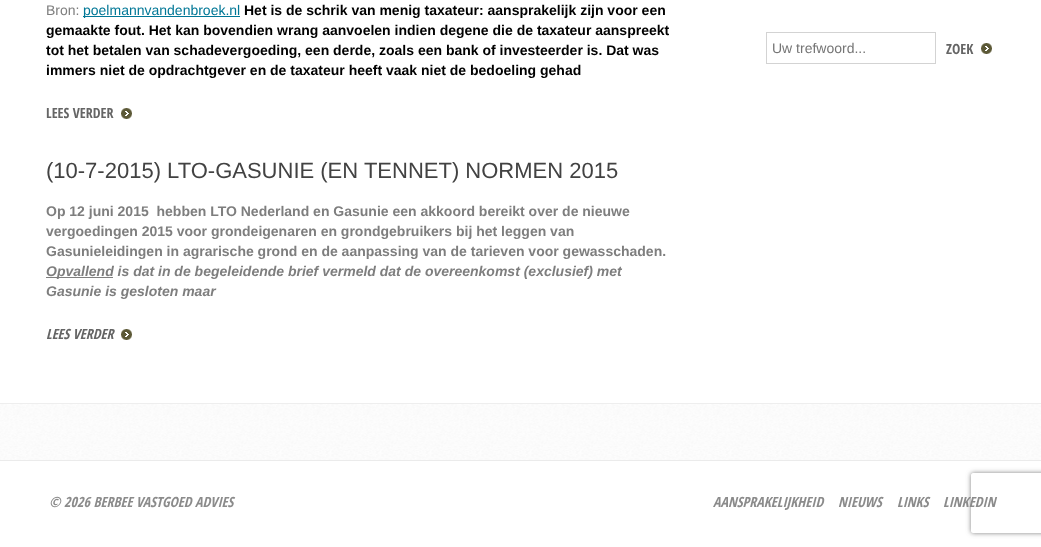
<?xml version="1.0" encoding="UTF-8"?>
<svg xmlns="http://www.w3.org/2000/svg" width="1041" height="547">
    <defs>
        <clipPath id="clip1"><rect x="946" y="32" width="46" height="32"/></clipPath>
        <clipPath id="clip2"><path d="M 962 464 H 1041 V 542 H 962 Z M 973 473 H 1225 C 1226 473 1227 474 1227 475 V 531 C 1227 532 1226 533 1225 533 H 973 C 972 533 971 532 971 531 V 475 C 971 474 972 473 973 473 Z" clip-rule="evenodd"/></clipPath>
        <filter id="blur1" x="-50%" y="-200%" width="200%" height="500%"><feGaussianBlur stdDeviation="2.5"/></filter>
    </defs>
    <rect width="100%" height="100%" fill="#FFFFFF"/>
    <text x="46" y="15" font-family="Liberation Sans" font-size="14" fill="#7E7E7E">Bron:</text>
    <rect x="83" y="16" width="157" height="1" fill="#007796"/>
    <text x="83" y="15" font-family="Liberation Sans" font-size="14" fill="#007796">poelmannvandenbroek.nl</text>
    <text x="244" y="15" font-family="Liberation Sans" font-size="14" font-weight="700" fill="#000000">Het is de schrik van menig taxateur: aansprakelijk zijn voor een</text>
    <text font-family="Liberation Sans" font-size="14" font-weight="700" fill="#000000">
        <tspan x="46" y="35">gemaakte fout. Het kan bovendien wrang aanvoelen indien degene die de taxateur aanspreekt</tspan>
        <tspan x="46" y="55">tot het betalen van schadevergoeding, een derde, zoals een bank of investeerder is. Dat was</tspan>
        <tspan x="46" y="75">immers niet de opdrachtgever en de taxateur heeft vaak niet de bedoeling gehad</tspan>
    </text>
    <image x="121" y="108" width="11" height="11" href="img_01.png"/>
    <text x="46" y="118" font-family="Open Sans Condensed" font-size="14" font-weight="700" fill="#656565">LEES VERDER</text>
    <text x="46" y="178" font-family="Liberation Sans" font-size="22" fill="#424242">(10-7-2015) LTO-GASUNIE (EN TENNET) NORMEN 2015</text>
    <text font-family="Liberation Sans" font-size="14" font-weight="700" fill="#7E7E7E" xml:space="preserve"><tspan x="46" y="216">Op 12 juni 2015  hebben LTO Nederland en Gasunie een akkoord bereikt over de nieuwe</tspan><tspan x="46" y="236">vergoedingen 2015 voor grondeigenaren en grondgebruikers bij het leggen van</tspan><tspan x="46" y="256">Gasunieleidingen in agrarische grond en de aanpassing van de tarieven voor gewasschaden.</tspan></text>
    <rect x="46" y="277" width="67" height="1" fill="#7E7E7E"/>
    <text font-family="Liberation Sans" font-size="14" font-weight="700" font-style="italic" fill="#7E7E7E">
        <tspan x="46" y="276">Opvallend is dat in de begeleidende brief vermeld dat de overeenkomst (exclusief) met</tspan>
        <tspan x="46" y="296">Gasunie is gesloten maar</tspan>
    </text>
    <image x="121" y="329" width="11" height="11" href="img_01.png"/>
    <text x="46" y="339" font-family="Open Sans Condensed" font-size="14" font-weight="700" font-style="italic" fill="#656565">LEES VERDER</text>
    <rect x="766.5" y="32.5" width="169" height="31" fill="none" stroke="#D3D3D3"/>
    <text x="772" y="53" font-family="Liberation Sans" font-size="14" fill="#757575">Uw trefwoord...</text>
    <image x="981" y="43" width="11" height="11" href="img_01.png"/>
    <g clip-path="url(#clip1)">
        <text x="946" y="54" font-family="Open Sans Condensed" font-size="14" font-weight="700" fill="#656565">ZOEK</text>
    </g>
    <image x="0" y="404" width="1041" height="56" href="img_02.png"/>
    <rect x="0" y="403" width="1041" height="1" fill="#EEEEEE"/>
    <rect x="0" y="460" width="1041" height="1" fill="#EBEBEB"/>
    <text x="49" y="507" font-family="Open Sans Condensed" font-size="14" font-weight="700" font-style="italic" fill="#8B8B8B">© 2026 BERBEE VASTGOED ADVIES</text>
    <text x="713" y="507" font-family="Open Sans Condensed" font-size="14" font-weight="700" font-style="italic" fill="#8B8B8B">AANSPRAKELIJKHEID</text>
    <text x="838" y="507" font-family="Open Sans Condensed" font-size="14" font-weight="700" font-style="italic" fill="#8B8B8B">NIEUWS</text>
    <text x="897" y="507" font-family="Open Sans Condensed" font-size="14" font-weight="700" font-style="italic" fill="#8B8B8B">LINKS</text>
    <g clip-path="url(#clip2)">
        <rect x="971" y="473" width="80" height="60" rx="2" fill="#808080" filter="url(#blur1)"/>
    </g>
    <text x="943" y="507" font-family="Open Sans Condensed" font-size="14" font-weight="700" font-style="italic" fill="#8B8B8B">LINKEDIN</text>
</svg>
